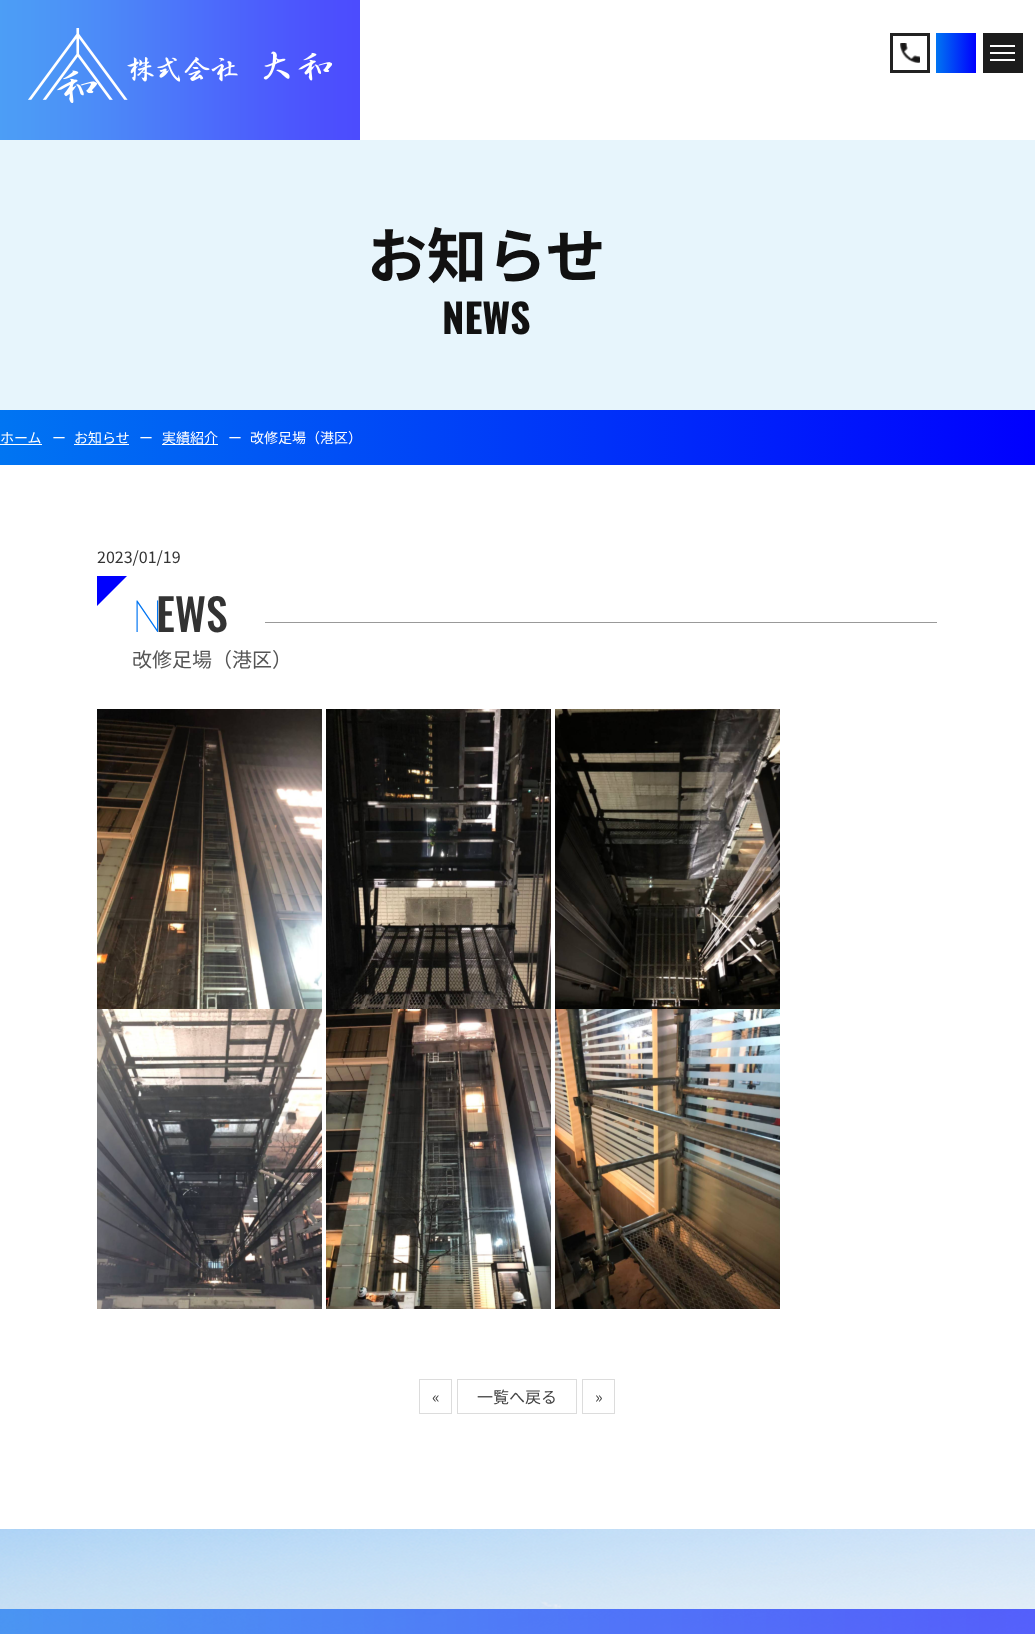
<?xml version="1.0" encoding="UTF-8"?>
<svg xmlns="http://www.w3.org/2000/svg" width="1035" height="1634">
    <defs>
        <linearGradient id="g1" gradientUnits="userSpaceOnUse" x1="936" y1="53" x2="976" y2="53"><stop offset="0" stop-color="#0075F2"/><stop offset="1" stop-color="#0000FE"/></linearGradient>
        <linearGradient id="g2" gradientUnits="userSpaceOnUse" x1="0" y1="438" x2="1035" y2="437"><stop offset="0" stop-color="#0075F2"/><stop offset="1" stop-color="#0000FE"/></linearGradient>
    </defs>
    <rect width="100%" height="100%" fill="#FFFFFF"/>
    <image x="0" y="0" width="360" height="140" href="img_01.png"/>
    <rect x="891.5" y="34.5" width="37" height="37" fill="none" stroke="#222222" stroke-width="3"/>
    <image x="900" y="43" width="20" height="20" href="img_02.png"/>
    <rect x="936" y="33" width="40" height="40" fill="url(#g1)"/>
    <rect x="983" y="33" width="40" height="40" fill="#1C1C1C"/>
    <rect x="990" y="45" width="25" height="2" fill="#FFFFFF"/>
    <rect x="990" y="52" width="25" height="2" fill="#FFFFFF"/>
    <rect x="990" y="59" width="25" height="2" fill="#FFFFFF"/>
    <rect x="0" y="140" width="1035" height="270" fill="#E7F5FC"/>
    <text x="367" y="278" font-family="Noto Sans JP" font-size="60" font-weight="700" fill="#111111">お知らせ</text>
    <text x="442" y="334" font-family="Oswald" font-size="40" font-weight="700" fill="#111111">NEWS</text>
    <rect x="0" y="410" width="1035" height="55" fill="url(#g2)"/>
    <text x="0" y="443" font-family="Noto Sans JP" font-size="14" fill="#FFFFFF">ホーム</text>
    <rect x="0" y="444" width="42" height="1" fill="#FFFFFF"/>
    <text x="52" y="443" font-family="Noto Sans JP" font-size="14" fill="#FFFFFF">ー</text>
    <rect x="74" y="444" width="55" height="1" fill="#FFFFFF"/>
    <text x="74" y="443" font-family="Noto Sans JP" font-size="14" fill="#FFFFFF">お知らせ</text>
    <text x="139" y="443" font-family="Noto Sans JP" font-size="14" fill="#FFFFFF">ー</text>
    <rect x="162" y="444" width="56" height="1" fill="#FFFFFF"/>
    <text x="162" y="443" font-family="Noto Sans JP" font-size="14" fill="#FFFFFF">実績紹介</text>
    <text x="228" y="443" font-family="Noto Sans JP" font-size="14" fill="#FFFFFF">ー</text>
    <text x="250" y="443" font-family="Noto Sans JP" font-size="14" fill="#FFFFFF">改修足場（港区）</text>
    <text x="97" y="563" font-family="Noto Sans JP" font-size="16" fill="#333333">2023/01/19</text>
    <path d="M 97 576 H 127 L 97 606 Z" fill="#0000FE"/>
    <text x="132" y="632" font-family="Noto Sans" font-size="44" font-weight="100" fill="#0075F2">N</text>
    <text x="156" y="632" font-family="Oswald" font-size="44" font-weight="500" fill="#333333">EWS</text>
    <rect x="265" y="622" width="672" height="1" fill="#999999"/>
    <text x="132" y="667" font-family="Noto Sans JP" font-size="20" fill="#555555">改修足場（港区）</text>
    <image x="97" y="709" width="225" height="300" href="img_03.png"/>
    <image x="326" y="709" width="225" height="300" href="img_04.png"/>
    <image x="555" y="709" width="225" height="300" href="img_05.png"/>
    <image x="97" y="1009" width="225" height="300" href="img_06.png"/>
    <image x="326" y="1009" width="225" height="300" href="img_07.png"/>
    <image x="555" y="1009" width="225" height="300" href="img_08.png"/>
    <rect x="419.5" y="1379.5" width="32" height="34" fill="none" stroke="#DCDCDC"/>
    <text x="432" y="1403" font-family="Noto Sans JP" font-size="16" fill="#444444">«</text>
    <rect x="457.5" y="1379.5" width="119" height="34" fill="none" stroke="#DCDCDC"/>
    <text x="477" y="1403" font-family="Noto Sans JP" font-size="16" fill="#444444">一覧へ戻る</text>
    <rect x="582.5" y="1379.5" width="32" height="34" fill="none" stroke="#DCDCDC"/>
    <text x="595" y="1403" font-family="Noto Sans JP" font-size="16" fill="#444444">»</text>
    <image x="0" y="1529" width="1035" height="105" href="img_09.png"/>
    <image x="0" y="1609" width="1035" height="25" href="img_10.png"/>
</svg>
